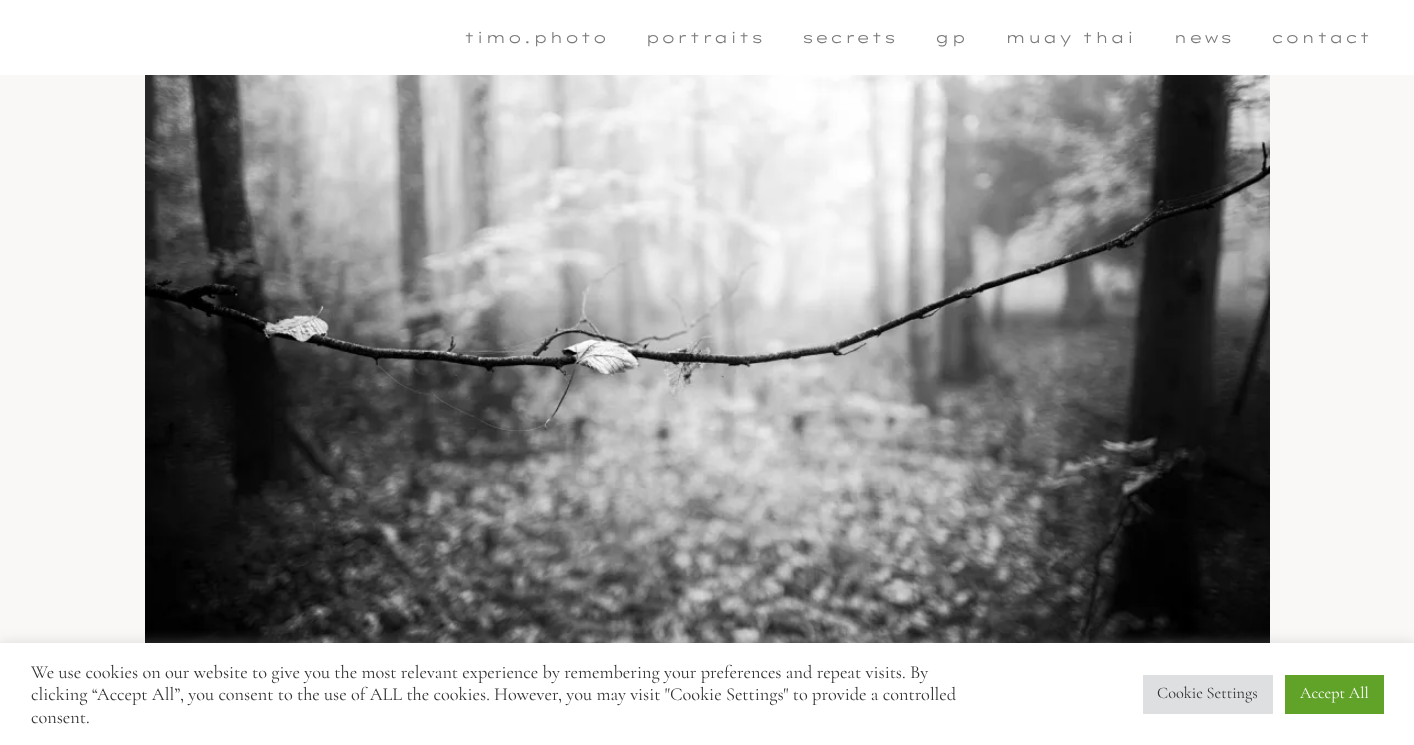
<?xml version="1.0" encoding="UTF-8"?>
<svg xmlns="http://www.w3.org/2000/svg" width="1414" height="745">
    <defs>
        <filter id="blur1" x="-50%" y="-200%" width="200%" height="500%"><feGaussianBlur stdDeviation="6"/></filter>
    </defs>
    <rect width="100%" height="100%" fill="#F9F8F7"/>
    <rect x="0" y="0" width="1414" height="75" fill="#FFFFFF"/>
    <text x="464" y="43" font-family="Lexend Zetta" font-size="15" font-weight="300" letter-spacing="1.25" fill="#7A7A7A">timo.photo</text>
    <text x="645" y="43" font-family="Lexend Zetta" font-size="15" font-weight="300" letter-spacing="1.25" fill="#7A7A7A">portraits</text>
    <text x="802" y="43" font-family="Lexend Zetta" font-size="15" font-weight="300" letter-spacing="1.25" fill="#7A7A7A">secrets</text>
    <text x="935" y="43" font-family="Lexend Zetta" font-size="15" font-weight="300" letter-spacing="1.25" fill="#7A7A7A">gp</text>
    <text x="1005" y="43" font-family="Lexend Zetta" font-size="15" font-weight="300" letter-spacing="1.25" fill="#7A7A7A">muay thai</text>
    <text x="1173" y="43" font-family="Lexend Zetta" font-size="15" font-weight="300" letter-spacing="1.25" fill="#7A7A7A">news</text>
    <text x="1271" y="43" font-family="Lexend Zetta" font-size="15" font-weight="300" letter-spacing="1.25" fill="#7A7A7A">contact</text>
    <image x="145" y="75" width="1125" height="568" href="img_01.png"/>
    <rect x="0" y="641" width="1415" height="103" fill="#ACABAB" fill-opacity="0.3" filter="url(#blur1)"/>
    <rect x="0" y="643" width="1414" height="102" fill="#FFFFFF"/>
    <text font-family="Cormorant Garamond" font-size="18.33" fill="#333333">
        <tspan x="31" y="678">We use cookies on our website to give you the most relevant experience by remembering your preferences and repeat visits. By</tspan>
        <tspan x="31" y="700">clicking “Accept All”, you consent to the use of ALL the cookies. However, you may visit "Cookie Settings" to provide a controlled</tspan>
        <tspan x="31" y="723">consent.</tspan>
    </text>
    <rect x="1143" y="675" width="130" height="39" fill="#DEDFE0"/>
    <text x="1157" y="698" font-family="Cormorant Garamond" font-size="16.25" fill="#333333">Cookie Settings</text>
    <rect x="1285" y="675" width="99" height="39" fill="#61A229"/>
    <text x="1300" y="698" font-family="Cormorant Garamond" font-size="16.25" fill="#FFFFFF">Accept All</text>
</svg>
